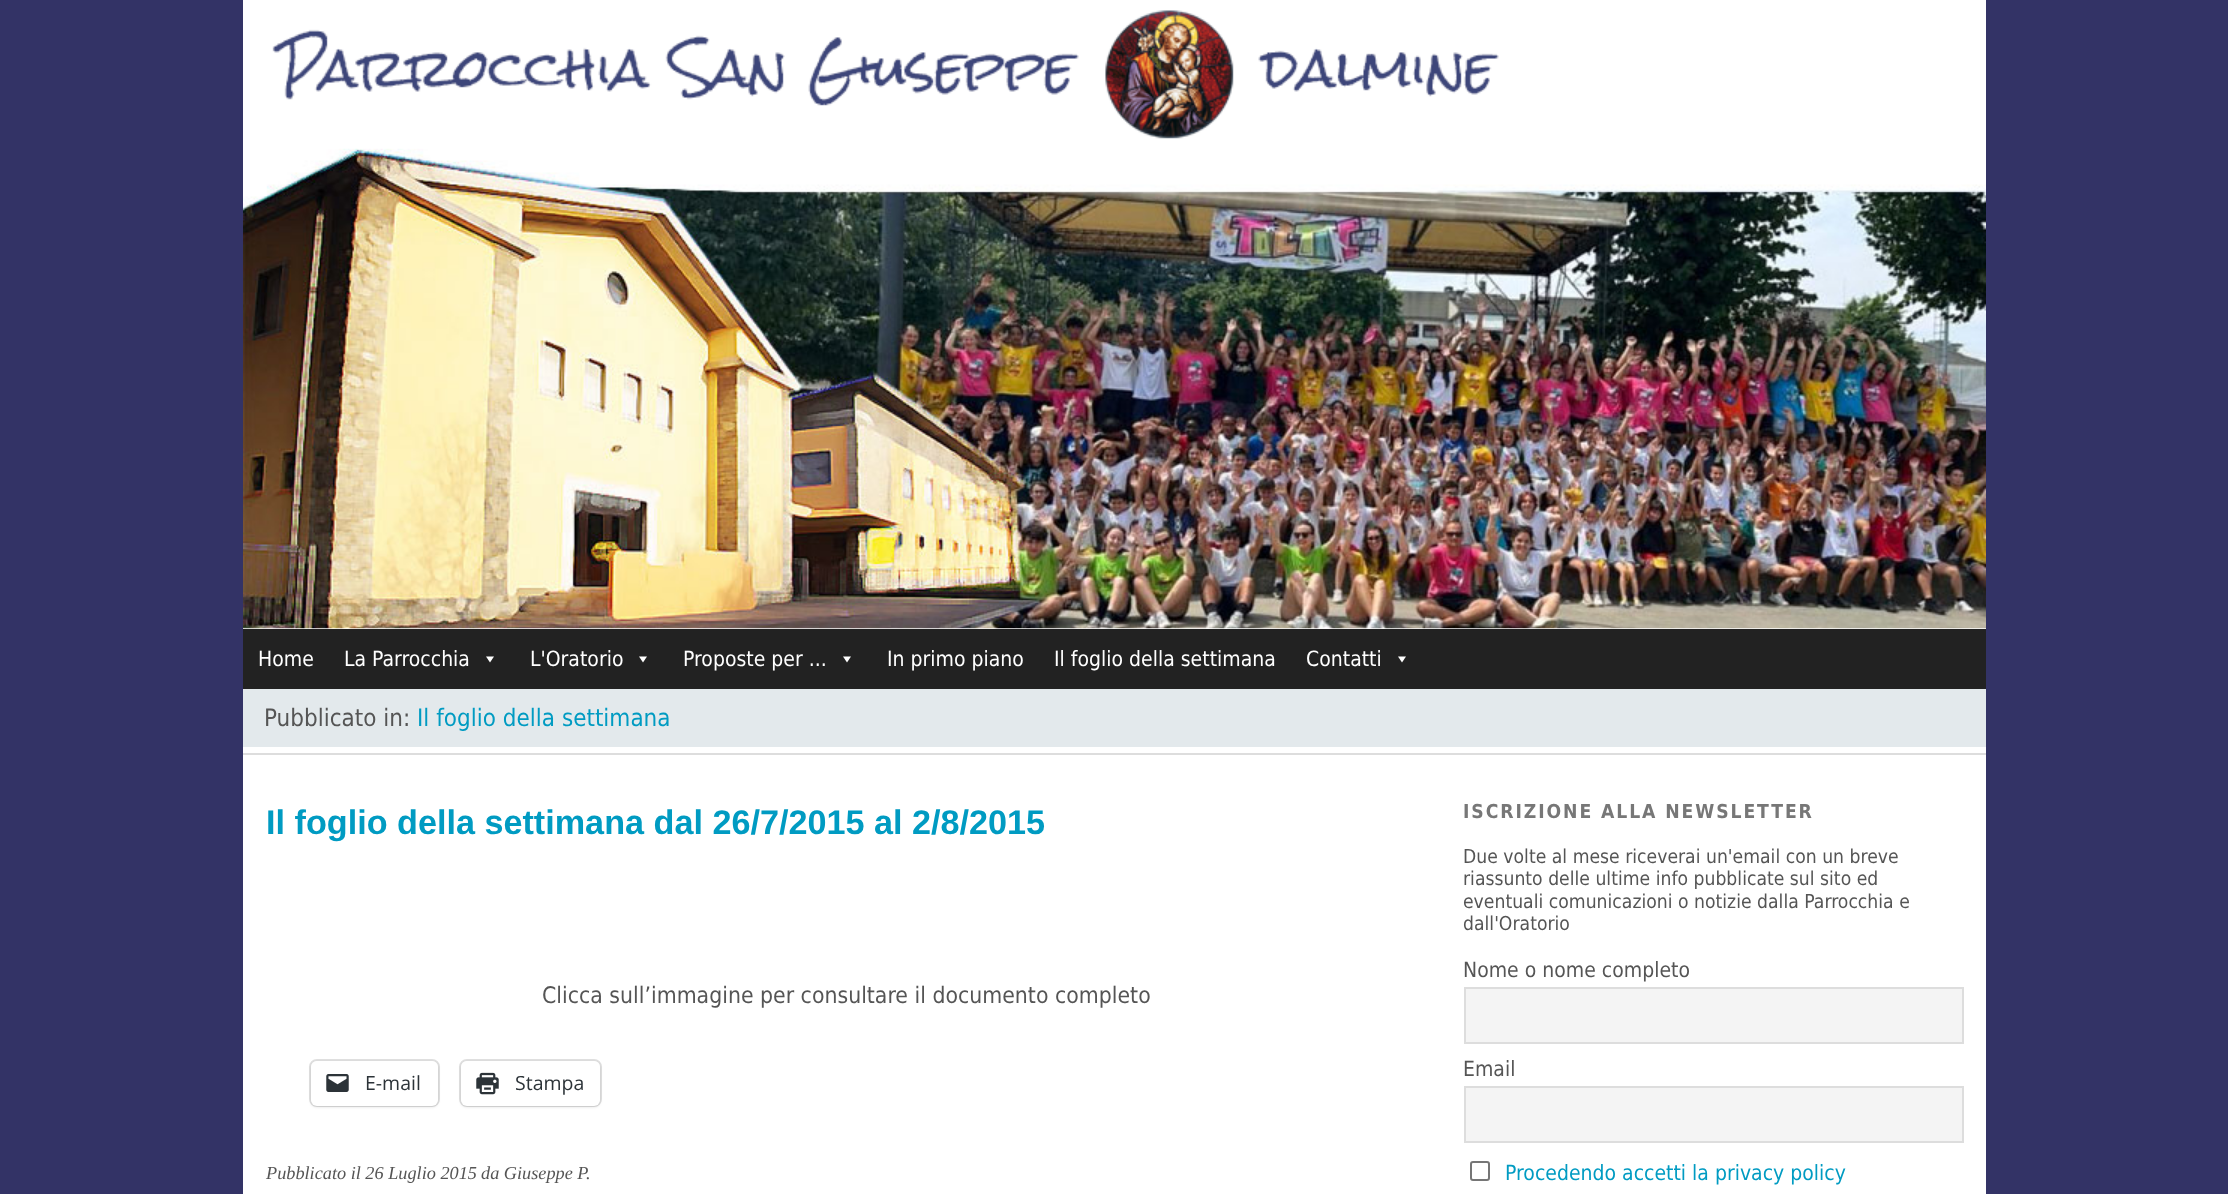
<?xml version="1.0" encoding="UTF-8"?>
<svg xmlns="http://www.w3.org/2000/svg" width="2228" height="1194">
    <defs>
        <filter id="blur1" x="-50%" y="-200%" width="200%" height="500%"><feGaussianBlur stdDeviation="1.5"/></filter>
    </defs>
    <rect width="100%" height="100%" fill="#333366"/>
    <rect x="243" y="0" width="1743" height="1194" fill="#FFFFFF"/>
    <image x="272" y="10" width="1227" height="129" href="img_01.png"/>
    <image x="243" y="148" width="1743" height="481" href="img_02.png"/>
    <rect x="243" y="629" width="1743" height="60" fill="#222222"/>
    <text x="258" y="666" font-family="DejaVu Sans" font-size="21" fill="#FFFFFF">Home</text>
    <text x="344" y="666" font-family="DejaVu Sans" font-size="21" fill="#FFFFFF">La Parrocchia</text>
    <path d="M 494 656.5 L 490 662.5 L 486 656.5 Z" fill="#FFFFFF"/>
    <text x="530" y="666" font-family="DejaVu Sans" font-size="21" fill="#FFFFFF">L'Oratorio</text>
    <path d="M 647 656.5 L 643 662.5 L 639 656.5 Z" fill="#FFFFFF"/>
    <text x="683" y="666" font-family="DejaVu Sans" font-size="21" fill="#FFFFFF">Proposte per ...</text>
    <path d="M 851 656.5 L 847 662.5 L 843 656.5 Z" fill="#FFFFFF"/>
    <text x="887" y="666" font-family="DejaVu Sans" font-size="21" fill="#FFFFFF">In primo piano</text>
    <text x="1054" y="666" font-family="DejaVu Sans" font-size="21" fill="#FFFFFF">Il foglio della settimana</text>
    <text x="1306" y="666" font-family="DejaVu Sans" font-size="21" fill="#FFFFFF">Contatti</text>
    <path d="M 1406 656.5 L 1402 662.5 L 1398 656.5 Z" fill="#FFFFFF"/>
    <rect x="243" y="689" width="1743" height="58" fill="#E3E9EC"/>
    <text x="264" y="726" font-family="DejaVu Sans" font-size="24" fill="#555555">Pubblicato in:</text>
    <text x="417" y="726" font-family="DejaVu Sans" font-size="24" fill="#009BC2">Il foglio della settimana</text>
    <rect x="243" y="753" width="1743" height="2" fill="#DDDDDD"/>
    <text x="266" y="834" font-family="Liberation Sans" font-size="34.2" font-weight="700" fill="#009BC2">Il foglio della settimana dal 26/7/2015 al 2/8/2015</text>
    <text x="542" y="1003" font-family="DejaVu Sans" font-size="22.8" fill="#555555">Clicca sull’immagine per consultare il documento completo</text>
    <rect x="310" y="1060" width="129" height="46" rx="7" fill="none" stroke="#E0E0E0" stroke-width="2"/>
    <rect x="311" y="1062" width="127" height="45" rx="6" fill="#000000" fill-opacity="0.12" filter="url(#blur1)"/>
    <rect x="311" y="1061" width="127" height="45" rx="6" fill="#FFFFFF"/>
    <image x="326" y="1074" width="23" height="18" href="img_03.png"/>
    <text x="365" y="1090" font-family="Open Sans" font-size="19.5" fill="#2C3338">E-mail</text>
    <rect x="460" y="1060" width="141" height="46" rx="7" fill="none" stroke="#E0E0E0" stroke-width="2"/>
    <rect x="461" y="1062" width="139" height="45" rx="6" fill="#000000" fill-opacity="0.12" filter="url(#blur1)"/>
    <rect x="461" y="1061" width="139" height="45" rx="6" fill="#FFFFFF"/>
    <image x="476" y="1072" width="23" height="23" href="img_04.png"/>
    <text x="515" y="1090" font-family="Open Sans" font-size="19.5" fill="#2C3338">Stampa</text>
    <text x="266" y="1179" font-family="Liberation Serif" font-size="18.25" font-style="italic" fill="#555555">Pubblicato il 26 Luglio 2015</text>
    <text x="481" y="1179" font-family="Liberation Serif" font-size="18.25" font-style="italic" fill="#555555">da Giuseppe P.</text>
    <text x="1463" y="818" font-family="DejaVu Sans" font-size="19.2" font-weight="700" letter-spacing="1.9" fill="#777777">ISCRIZIONE ALLA NEWSLETTER</text>
    <text font-family="DejaVu Sans" font-size="19.2" fill="#555555">
        <tspan x="1463" y="863">Due volte al mese riceverai un'email con un breve</tspan>
        <tspan x="1463" y="885">riassunto delle ultime info pubblicate sul sito ed</tspan>
        <tspan x="1463" y="908">eventuali comunicazioni o notizie dalla Parrocchia e</tspan>
        <tspan x="1463" y="930">dall'Oratorio</tspan>
    </text>
    <text x="1463" y="977" font-family="DejaVu Sans" font-size="21" fill="#555555">Nome o nome completo</text>
    <rect x="1465" y="988" width="498" height="55" fill="#F4F4F4" stroke="#DDDDDD" stroke-width="2"/>
    <text x="1463" y="1076" font-family="DejaVu Sans" font-size="21" fill="#555555">Email</text>
    <rect x="1465" y="1087" width="498" height="55" fill="#F4F4F4" stroke="#DDDDDD" stroke-width="2"/>
    <rect x="1471" y="1162" width="18" height="18" rx="2" fill="none" stroke="#767676" stroke-width="2"/>
    <text x="1505" y="1180" font-family="DejaVu Sans" font-size="21" fill="#009BC2">Procedendo accetti la privacy policy</text>
</svg>
